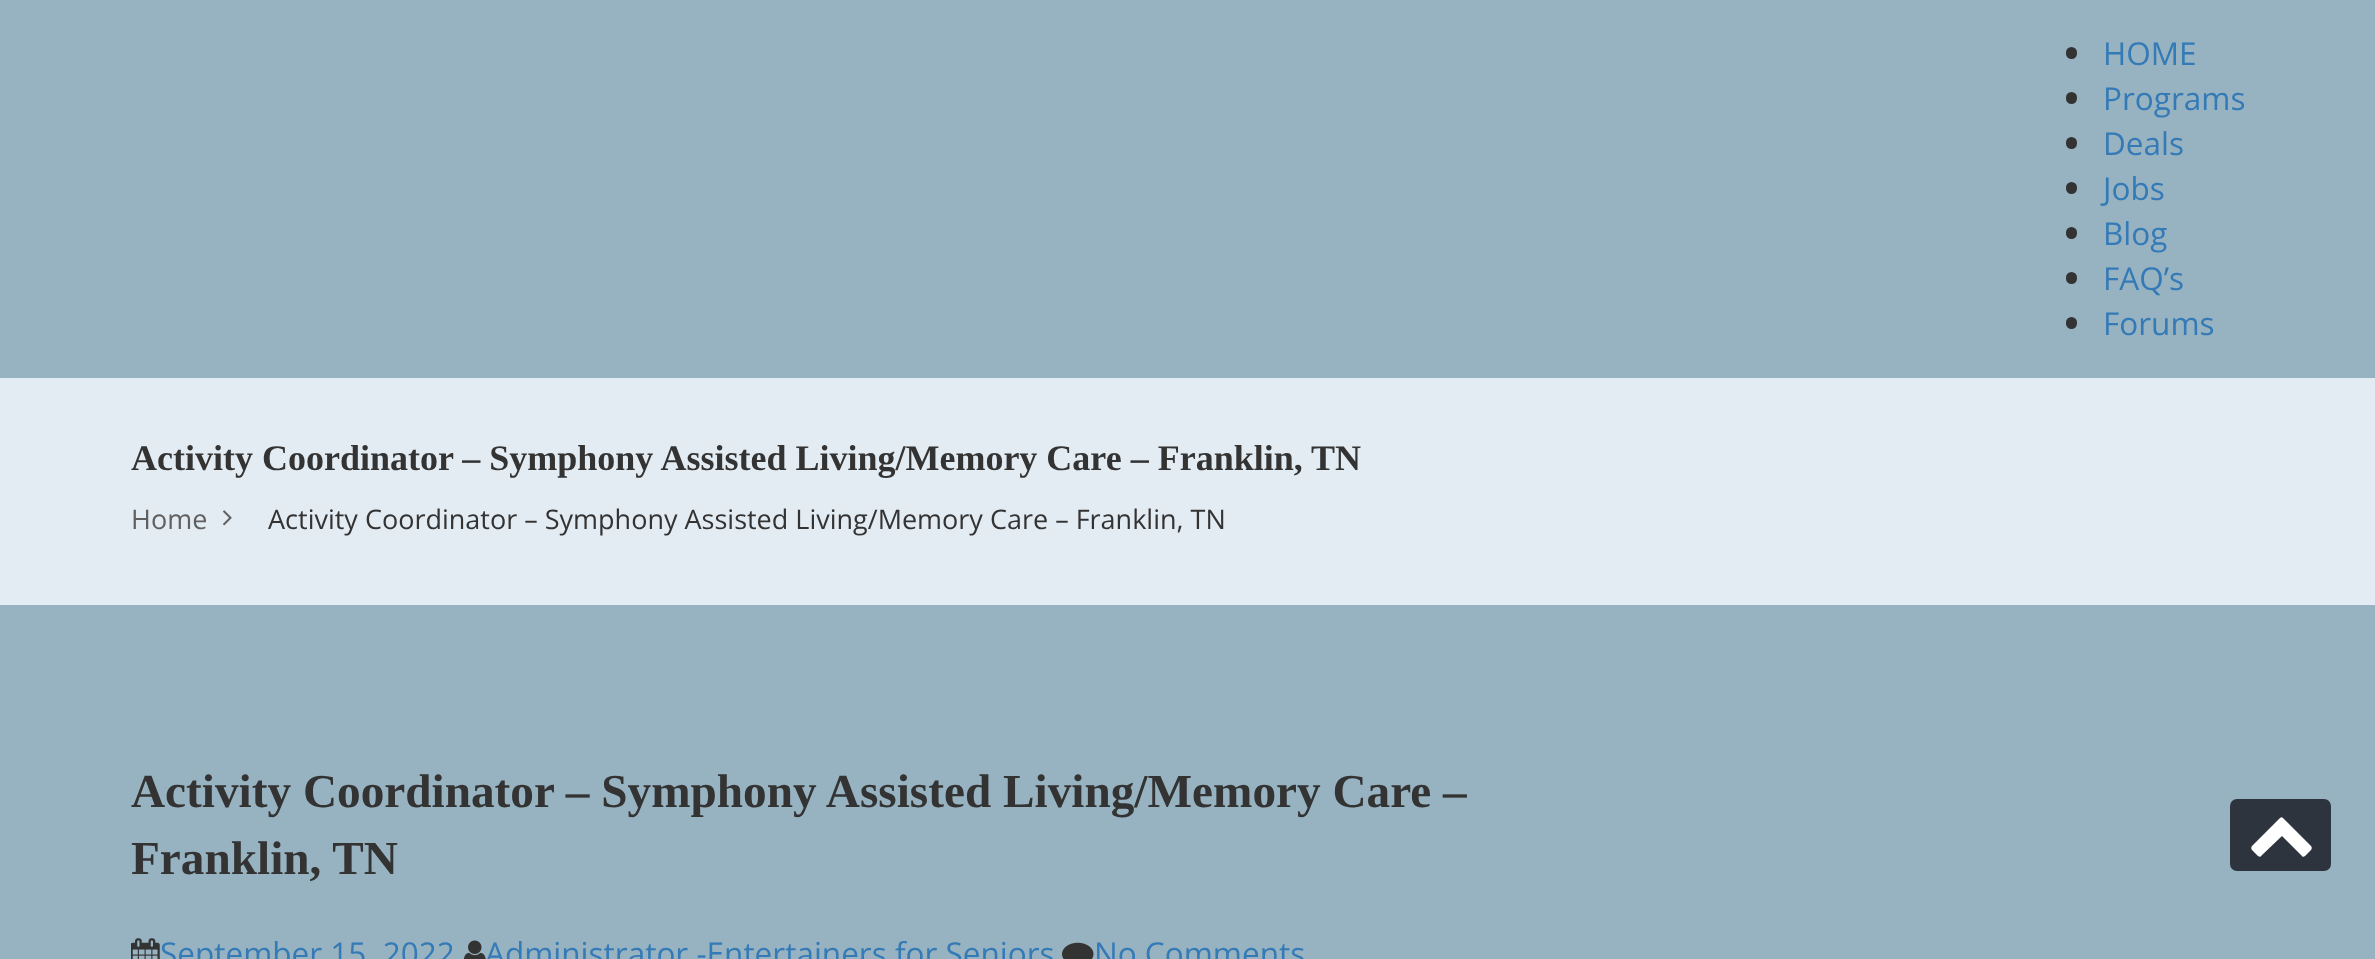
<?xml version="1.0" encoding="UTF-8"?>
<svg xmlns="http://www.w3.org/2000/svg" width="2375" height="959">
    <rect width="100%" height="100%" fill="#97B3C1"/>
    <rect x="2066" y="47" width="11" height="12" rx="5.5" fill="#333333"/>
    <text x="2103" y="65" font-family="Open Sans" font-size="31.5" fill="#337AB7">HOME</text>
    <rect x="2066" y="92" width="11" height="12" rx="5.5" fill="#333333"/>
    <text x="2103" y="110" font-family="Open Sans" font-size="31.5" fill="#337AB7">Programs</text>
    <rect x="2066" y="137" width="11" height="12" rx="5.5" fill="#333333"/>
    <text x="2103" y="155" font-family="Open Sans" font-size="31.5" fill="#337AB7">Deals</text>
    <rect x="2066" y="182" width="11" height="12" rx="5.5" fill="#333333"/>
    <text x="2103" y="200" font-family="Open Sans" font-size="31.5" fill="#337AB7">Jobs</text>
    <rect x="2066" y="227" width="11" height="12" rx="5.5" fill="#333333"/>
    <text x="2103" y="245" font-family="Open Sans" font-size="31.5" fill="#337AB7">Blog</text>
    <rect x="2066" y="272" width="11" height="12" rx="5.5" fill="#333333"/>
    <text x="2103" y="290" font-family="Open Sans" font-size="31.5" fill="#337AB7">FAQ’s</text>
    <rect x="2066" y="317" width="11" height="12" rx="5.5" fill="#333333"/>
    <text x="2103" y="335" font-family="Open Sans" font-size="31.5" fill="#337AB7">Forums</text>
    <rect x="0" y="378" width="2375" height="227" fill="#E4ECF3"/>
    <text x="131" y="470" font-family="Liberation Serif" font-size="36" font-weight="700" fill="#333333">Activity Coordinator – Symphony Assisted Living/Memory Care – Franklin, TN</text>
    <text x="131" y="529" font-family="Open Sans" font-size="27" fill="#606060">Home</text>
    <image x="223" y="510" width="9" height="16" href="img_01.png"/>
    <text x="268" y="529" font-family="Open Sans" font-size="27" fill="#333333">Activity Coordinator – Symphony Assisted Living/Memory Care – Franklin, TN</text>
    <text font-family="Liberation Serif" font-size="47.25" font-weight="700" fill="#333333">
        <tspan x="131" y="807">Activity Coordinator – Symphony Assisted Living/Memory Care –</tspan>
        <tspan x="131" y="874">Franklin, TN</tspan>
    </text>
    <image x="131" y="938" width="29" height="21" href="img_02.png"/>
    <text x="160" y="965" font-family="Open Sans" font-size="31.5" fill="#337AB7">September 15, 2022</text>
    <image x="463" y="940" width="23" height="19" href="img_03.png"/>
    <text x="485" y="965" font-family="Open Sans" font-size="31.5" fill="#337AB7">Administrator -Entertainers for Seniors</text>
    <image x="1062" y="942" width="32" height="17" href="img_04.png"/>
    <text x="1094" y="965" font-family="Open Sans" font-size="31.5" fill="#337AB7">No Comments</text>
    <rect x="2230" y="799" width="101" height="72" rx="7" fill="#2D343D"/>
    <path d="M 2311 850 C 2312 849 2312 847 2311 846 L 2283 818 C 2282 817 2281 817 2280 818 L 2252 846 C 2251 847 2251 849 2252 850 L 2258 856 C 2259 857 2261 857 2261 856 L 2282 836 L 2302 856 C 2302 857 2304 857 2305 856 Z" fill="#FFFFFF"/>
</svg>
